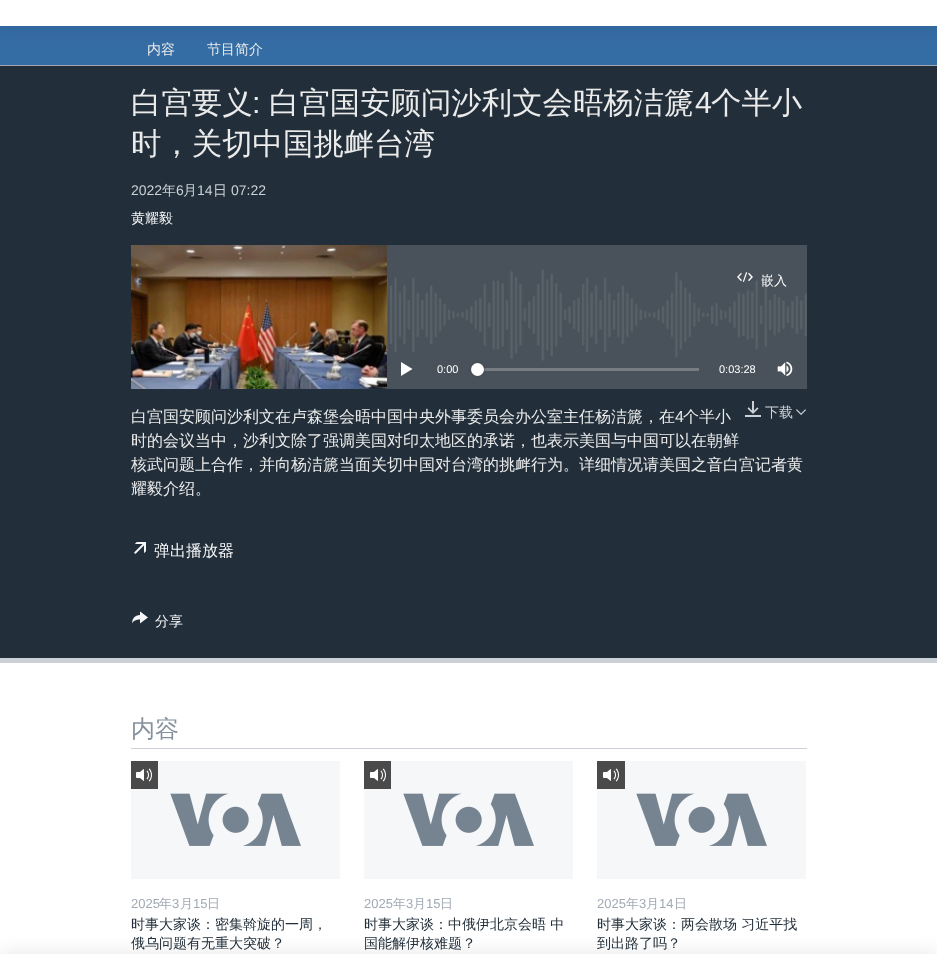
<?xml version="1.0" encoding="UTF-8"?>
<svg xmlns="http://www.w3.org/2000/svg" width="937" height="954">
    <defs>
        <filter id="blur1" x="-50%" y="-200%" width="200%" height="500%"><feGaussianBlur stdDeviation="10"/></filter>
        <filter id="blur2" x="-50%" y="-200%" width="200%" height="500%"><feGaussianBlur stdDeviation="1.5"/></filter>
    </defs>
    <rect width="100%" height="100%" fill="#FFFFFF"/>
    <rect x="0" y="26" width="937" height="39" fill="#346CA4"/>
    <rect x="0" y="-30" width="937" height="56" fill="#000000" fill-opacity="0.1" filter="url(#blur1)"/>
    <rect x="0" y="0" width="937" height="26" fill="#FFFFFF"/>
    <rect x="0" y="954" width="937" height="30" fill="#000000" fill-opacity="0.1" filter="url(#blur1)"/>
    <text x="147" y="54" font-family="WenQuanYi Zen Hei" font-size="14" font-weight="500" fill="#EBEBEB">内容</text>
    <text x="207" y="54" font-family="WenQuanYi Zen Hei" font-size="14" font-weight="500" fill="#EBEBEB">节目简介</text>
    <rect x="0" y="66" width="937" height="592" fill="#222F3A"/>
    <rect x="0" y="65" width="937" height="1" fill="#A1AAB4"/>
    <rect x="0" y="658" width="937" height="5" fill="#CBD1D6"/>
    <text x="131" y="113" font-family="WenQuanYi Zen Hei" font-size="30.4" font-weight="500" fill="#EBEBEB">白宫要义</text>
    <text x="252" y="113" font-family="Liberation Sans" font-size="30.4" fill="#EBEBEB">:</text>
    <text x="269" y="113" font-family="WenQuanYi Zen Hei" font-size="30.4" font-weight="500" fill="#EBEBEB">白宫国安顾问沙利文会晤杨洁篪</text>
    <text x="695" y="113" font-family="Liberation Sans" font-size="30.4" fill="#EBEBEB">4</text>
    <text x="711" y="113" font-family="WenQuanYi Zen Hei" font-size="30.4" font-weight="500" fill="#EBEBEB">个半小</text>
    <text x="131" y="154" font-family="WenQuanYi Zen Hei" font-size="30.4" font-weight="500" fill="#EBEBEB">时，关切中国挑衅台湾</text>
    <text x="131" y="195" font-family="Liberation Sans" font-size="14" fill="#CBD1D6">2022</text>
    <text x="162" y="195" font-family="WenQuanYi Zen Hei" font-size="14" font-weight="500" fill="#CBD1D6">年</text>
    <text x="176" y="195" font-family="Liberation Sans" font-size="14" fill="#CBD1D6">6</text>
    <text x="183" y="195" font-family="WenQuanYi Zen Hei" font-size="14" font-weight="500" fill="#CBD1D6">月</text>
    <text x="197" y="195" font-family="Liberation Sans" font-size="14" fill="#CBD1D6">14</text>
    <text x="213" y="195" font-family="WenQuanYi Zen Hei" font-size="14" font-weight="500" fill="#CBD1D6">日</text>
    <text x="231" y="195" font-family="Liberation Sans" font-size="14" fill="#CBD1D6">07:22</text>
    <text x="131" y="223" font-family="WenQuanYi Zen Hei" font-size="14" font-weight="500" fill="#F6F7F8">黄耀毅</text>
    <rect x="387" y="245" width="420" height="144" fill="#49525A"/>
    <image x="387" y="269" width="420" height="92" href="img_01.png"/>
    <image x="131" y="245" width="256" height="144" href="img_02.png"/>
    <image x="737" y="272" width="16" height="10" href="img_03.png"/>
    <text x="761" y="285" font-family="WenQuanYi Zen Hei" font-size="13" font-weight="500" fill="#FFFFFF">嵌入</text>
    <path d="M 401 376 L 412.5 369 L 401 362 Z" fill="#FFFFFF"/>
    <text x="437" y="373" font-family="Liberation Sans" font-size="11" fill="#FFFFFF">0:00</text>
    <rect x="478" y="368" width="221" height="3" fill="#777D83"/>
    <rect x="471" y="363" width="13" height="13" rx="6.5" fill="#414144" filter="url(#blur2)"/>
    <circle cx="477.5" cy="369.5" r="6.5" fill="#FFFFFF"/>
    <text x="719" y="373" font-family="Liberation Sans" font-size="11" fill="#FFFFFF">0:03:28</text>
    <image x="777" y="361" width="16" height="16" href="img_04.png"/>
    <image x="745" y="401" width="16" height="16" href="img_05.png"/>
    <text x="765" y="417" font-family="WenQuanYi Zen Hei" font-size="14" font-weight="500" fill="#CBD1D6">下载</text>
    <image x="796" y="409" width="10" height="6" href="img_06.png"/>
    <text x="131" y="422" font-family="WenQuanYi Zen Hei" font-size="16" font-weight="500" fill="#EBEBEB">白宫国安顾问沙利文在卢森堡会晤中国中央外事委员会办公室主任杨洁篪，在</text>
    <text x="675" y="422" font-family="Liberation Sans" font-size="16" fill="#EBEBEB">4</text>
    <text x="683" y="422" font-family="WenQuanYi Zen Hei" font-size="16" font-weight="500" fill="#EBEBEB">个半小</text>
    <text font-family="WenQuanYi Zen Hei" font-size="16" font-weight="500" fill="#EBEBEB">
        <tspan x="131" y="446">时的会议当中，沙利文除了强调美国对印太地区的承诺，也表示美国与中国可以在朝鲜</tspan>
        <tspan x="131" y="470">核武问题上合作，并向杨洁篪当面关切中国对台湾的挑衅行为。详细情况请美国之音白宫记者黄</tspan>
        <tspan x="131" y="494">耀毅介绍。</tspan>
    </text>
    <image x="134" y="542" width="12" height="12" href="img_07.png"/>
    <text x="154" y="556" font-family="WenQuanYi Zen Hei" font-size="16" font-weight="500" fill="#F6F7F8">弹出播放器</text>
    <image x="132" y="611" width="16" height="13" href="img_08.png"/>
    <text x="155" y="626" font-family="WenQuanYi Zen Hei" font-size="14" font-weight="500" fill="#F6F7F8">分享</text>
    <rect x="131" y="748" width="676" height="1" fill="#CBD1D6"/>
    <text x="131" y="737" font-family="WenQuanYi Zen Hei" font-size="24" font-weight="500" fill="#84919D">内容</text>
    <rect x="131" y="761" width="209" height="118" fill="#F6F7F8"/>
    <image x="170" y="793" width="131" height="53" href="img_09.png"/>
    <rect x="131" y="761" width="27" height="28" fill="#4A4A4A"/>
    <image x="136" y="768" width="16" height="14" href="img_10.png"/>
    <text x="131" y="908" font-family="Liberation Sans" font-size="13" fill="#A1AAB4">2025</text>
    <text x="159" y="908" font-family="WenQuanYi Zen Hei" font-size="13" font-weight="500" fill="#A1AAB4">年</text>
    <text x="172" y="908" font-family="Liberation Sans" font-size="13" fill="#A1AAB4">3</text>
    <text x="180" y="908" font-family="WenQuanYi Zen Hei" font-size="13" font-weight="500" fill="#A1AAB4">月</text>
    <text x="193" y="908" font-family="Liberation Sans" font-size="13" fill="#A1AAB4">15</text>
    <text x="207" y="908" font-family="WenQuanYi Zen Hei" font-size="13" font-weight="500" fill="#A1AAB4">日</text>
    <text font-family="WenQuanYi Zen Hei" font-size="14" font-weight="500" fill="#222F3A">
        <tspan x="131" y="929">时事大家谈：密集斡旋的一周，</tspan>
        <tspan x="131" y="948">俄乌问题有无重大突破？</tspan>
    </text>
    <rect x="364" y="761" width="209" height="118" fill="#F6F7F8"/>
    <image x="403" y="793" width="131" height="53" href="img_09.png"/>
    <rect x="364" y="761" width="27" height="28" fill="#4A4A4A"/>
    <image x="370" y="768" width="16" height="14" href="img_10.png"/>
    <text x="364" y="908" font-family="Liberation Sans" font-size="13" fill="#A1AAB4">2025</text>
    <text x="393" y="908" font-family="WenQuanYi Zen Hei" font-size="13" font-weight="500" fill="#A1AAB4">年</text>
    <text x="406" y="908" font-family="Liberation Sans" font-size="13" fill="#A1AAB4">3</text>
    <text x="413" y="908" font-family="WenQuanYi Zen Hei" font-size="13" font-weight="500" fill="#A1AAB4">月</text>
    <text x="426" y="908" font-family="Liberation Sans" font-size="13" fill="#A1AAB4">15</text>
    <text x="440" y="908" font-family="WenQuanYi Zen Hei" font-size="13" font-weight="500" fill="#A1AAB4">日</text>
    <text font-family="WenQuanYi Zen Hei" font-size="14" font-weight="500" fill="#222F3A">
        <tspan x="364" y="929">时事大家谈：中俄伊北京会晤 中</tspan>
        <tspan x="364" y="948">国能解伊核难题？</tspan>
    </text>
    <rect x="597" y="761" width="209" height="118" fill="#F6F7F8"/>
    <image x="636" y="793" width="131" height="53" href="img_09.png"/>
    <rect x="597" y="761" width="28" height="28" fill="#4A4A4A"/>
    <image x="603" y="768" width="16" height="14" href="img_10.png"/>
    <text x="597" y="908" font-family="Liberation Sans" font-size="13" fill="#A1AAB4">2025</text>
    <text x="626" y="908" font-family="WenQuanYi Zen Hei" font-size="13" font-weight="500" fill="#A1AAB4">年</text>
    <text x="639" y="908" font-family="Liberation Sans" font-size="13" fill="#A1AAB4">3</text>
    <text x="646" y="908" font-family="WenQuanYi Zen Hei" font-size="13" font-weight="500" fill="#A1AAB4">月</text>
    <text x="659" y="908" font-family="Liberation Sans" font-size="13" fill="#A1AAB4">14</text>
    <text x="674" y="908" font-family="WenQuanYi Zen Hei" font-size="13" font-weight="500" fill="#A1AAB4">日</text>
    <text font-family="WenQuanYi Zen Hei" font-size="14" font-weight="500" fill="#222F3A">
        <tspan x="597" y="929">时事大家谈：两会散场 习近平找</tspan>
        <tspan x="597" y="948">到出路了吗？</tspan>
    </text>
</svg>
